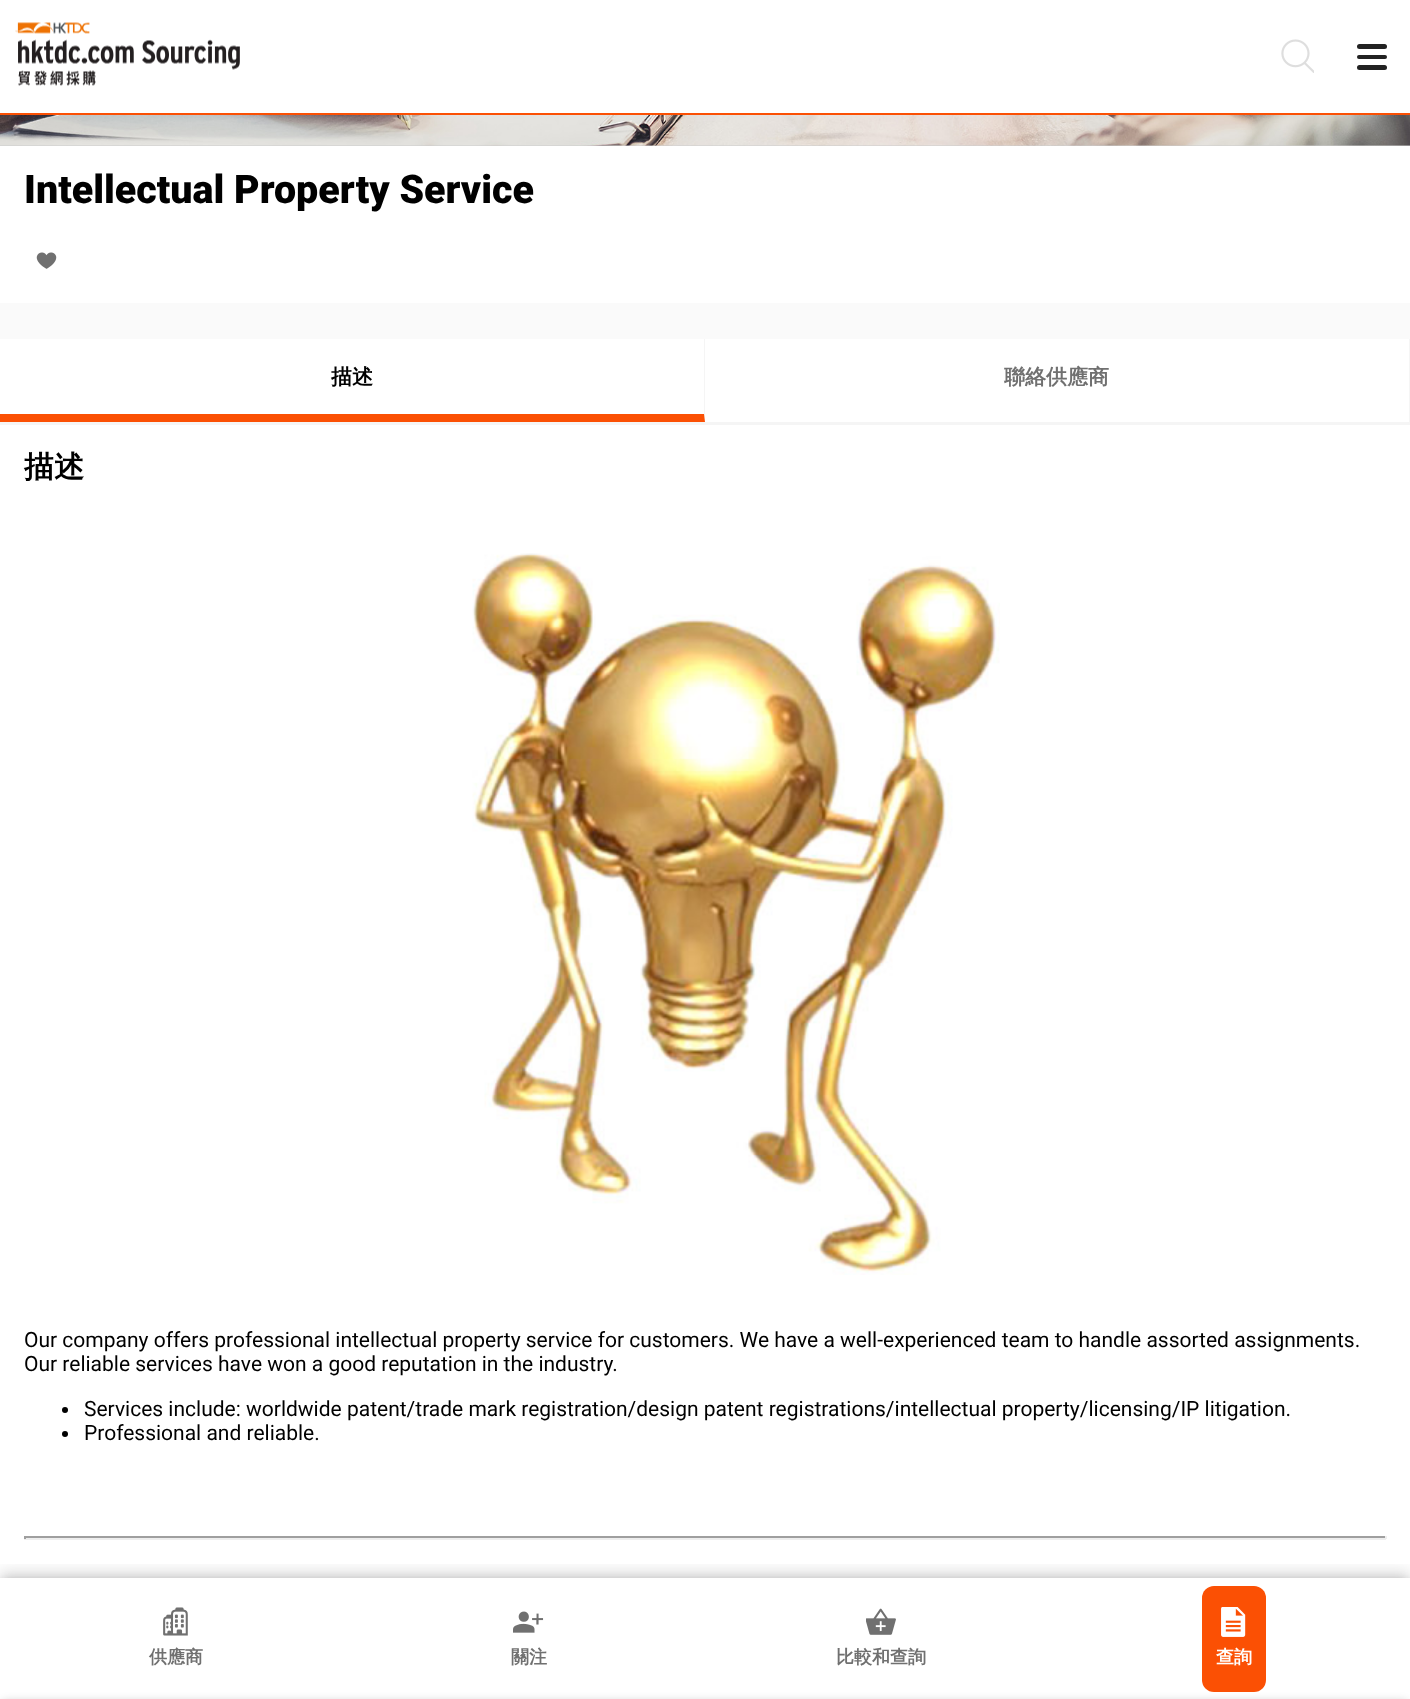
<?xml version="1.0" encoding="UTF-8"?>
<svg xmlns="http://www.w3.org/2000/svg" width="1410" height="1699">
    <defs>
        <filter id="blur1" x="-50%" y="-200%" width="200%" height="500%"><feGaussianBlur stdDeviation="4"/></filter>
        <clipPath id="clip1"><rect x="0" y="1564" width="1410" height="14"/></clipPath>
        <filter id="blur2" x="-50%" y="-200%" width="200%" height="500%"><feGaussianBlur stdDeviation="7.5"/></filter>
    </defs>
    <rect width="100%" height="100%" fill="#FFFFFF"/>
    <rect x="0" y="113" width="1410" height="2" fill="#FB5004"/>
    <image x="15" y="22" width="225" height="64" href="img_01.png"/>
    <image x="1281" y="39" width="33" height="34" href="img_02.png"/>
    <rect x="1357" y="44" width="30" height="5" rx="2.5" fill="#222222"/>
    <rect x="1357" y="55" width="30" height="4" rx="2" fill="#222222"/>
    <rect x="1357" y="65" width="30" height="5" rx="2.5" fill="#222222"/>
    <rect x="0" y="145" width="1410" height="1" fill="#CCCCCC"/>
    <image x="0" y="115" width="1410" height="31" href="img_03.png"/>
    <text x="24" y="203" font-family="Roboto" font-size="39.4" font-weight="900" fill="#000000">Intellectual Property Service</text>
    <image x="36" y="252" width="21" height="17" href="img_04.png"/>
    <rect x="0" y="303" width="1410" height="36" fill="#FAFAFA"/>
    <rect x="0" y="422" width="1410" height="3" fill="#F5F5F5"/>
    <path d="M 705 339 V 422 L 704 414 V 339 Z" fill="#F5F5F5"/>
    <path d="M 705 422 H 0 V 414 H 704 Z" fill="#FB5004"/>
    <text x="331" y="384" font-family="WenQuanYi Zen Hei" font-size="21" font-weight="700" fill="#000000">描述</text>
    <rect x="1409" y="339" width="1" height="83" fill="#F5F5F5"/>
    <text x="1004" y="384" font-family="WenQuanYi Zen Hei" font-size="21" font-weight="700" fill="#707070">聯絡供應商</text>
    <text x="24" y="477" font-family="WenQuanYi Zen Hei" font-size="30" font-weight="700" fill="#000000">描述</text>
    <image x="472" y="553" width="528" height="722" href="img_05.png"/>
    <text font-family="Roboto" font-size="21" fill="#000000">
        <tspan x="24" y="1347">Our company offers professional intellectual property service for customers. We have a well-experienced team to handle assorted assignments.</tspan>
        <tspan x="24" y="1371">Our reliable services have won a good reputation in the industry.</tspan>
    </text>
    <circle cx="65" cy="1410" r="3" fill="#000000"/>
    <text x="84" y="1416" font-family="Roboto" font-size="21" fill="#000000">Services include: worldwide patent/trade mark registration/design patent registrations/intellectual property/licensing/IP litigation.</text>
    <circle cx="65" cy="1434" r="3" fill="#000000"/>
    <text x="84" y="1440" font-family="Roboto" font-size="21" fill="#000000">Professional and reliable.</text>
    <rect x="24" y="1536" width="1362" height="2" fill="#9F9F9F"/>
    <rect x="1385" y="1536" width="2" height="3" fill="#EEEEEE"/>
    <rect x="24" y="1538" width="1362" height="2" fill="#EEEEEE"/>
    <rect x="24" y="1536" width="2" height="3" fill="#9F9F9F"/>
    <rect x="0" y="1580" width="1410" height="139" rx="8" fill="#000000" fill-opacity="0.2" filter="url(#blur1)"/>
    <rect x="0" y="1578" width="1410" height="121" fill="#FFFFFF"/>
    <g clip-path="url(#clip1)">
        <rect x="0" y="1572" width="1410" height="122" fill="#000000" fill-opacity="0.14" filter="url(#blur2)"/>
    </g>
    <image x="163" y="1607" width="25" height="29" href="img_06.png"/>
    <text x="149" y="1663" font-family="WenQuanYi Zen Hei" font-size="18" font-weight="700" fill="#707070">供應商</text>
    <image x="513" y="1611" width="31" height="22" href="img_07.png"/>
    <text x="511" y="1663" font-family="WenQuanYi Zen Hei" font-size="18" font-weight="700" fill="#707070">關注</text>
    <image x="866" y="1608" width="30" height="27" href="img_08.png"/>
    <text x="836" y="1663" font-family="WenQuanYi Zen Hei" font-size="18" font-weight="700" fill="#707070">比較和查詢</text>
    <rect x="1202" y="1586" width="64" height="106" rx="12" fill="#FB5004"/>
    <image x="1221" y="1607" width="25" height="30" href="img_09.png"/>
    <text x="1216" y="1663" font-family="WenQuanYi Zen Hei" font-size="18" font-weight="700" fill="#FFFFFF">查詢</text>
    <rect x="0" y="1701" width="1410" height="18" rx="8" fill="#000000" fill-opacity="0.2" filter="url(#blur1)"/>
</svg>
